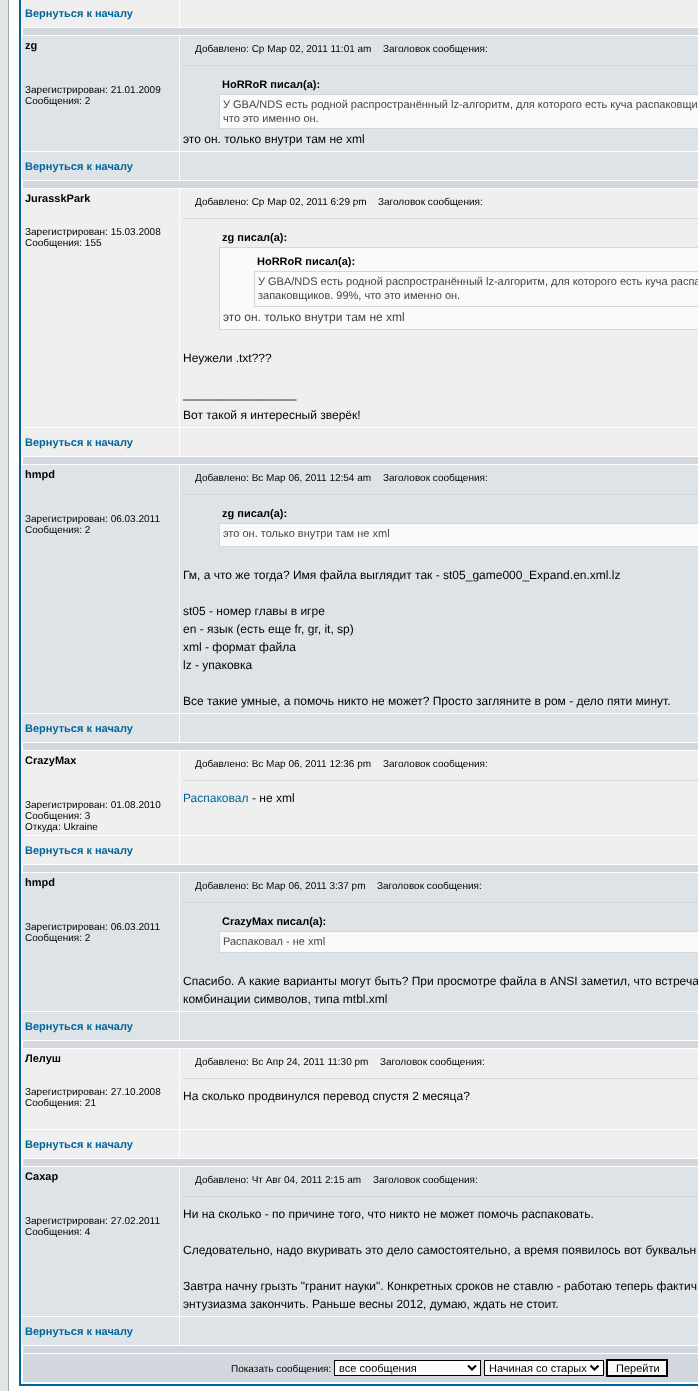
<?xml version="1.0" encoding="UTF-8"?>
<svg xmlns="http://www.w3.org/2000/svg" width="698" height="1391">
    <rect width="100%" height="100%" fill="#E5E5E5"/>
    <rect x="8.5" y="-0.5" width="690" height="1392" fill="#FFFFFF" stroke="#98AAB1"/>
    <rect x="20" y="-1" width="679" height="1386" fill="none" stroke="#006699" stroke-width="2"/>
    <rect x="22" y="0" width="157" height="27" fill="#EFEFEF"/>
    <text x="25" y="17" font-family="Liberation Sans" font-size="11" font-weight="700" fill="#006699">Вернуться к началу</text>
    <rect x="180" y="0" width="518" height="27" fill="#EFEFEF"/>
    <rect x="23" y="28" width="675" height="7" fill="#D1D7DC"/>
    <rect x="22" y="36" width="157" height="115" fill="#DEE3E7"/>
    <text x="25" y="49" font-family="Liberation Sans" font-size="11" font-weight="700" fill="#000000">zg</text>
    <text font-family="Liberation Sans" font-size="10" fill="#000000">
        <tspan x="25" y="93">Зарегистрирован: 21.01.2009</tspan>
        <tspan x="25" y="104">Сообщения: 2</tspan>
    </text>
    <rect x="180" y="36" width="518" height="115" fill="#DEE3E7"/>
    <text x="195" y="52" font-family="Liberation Sans" font-size="10" fill="#000000">Добавлено: Ср Мар 02, 2011 11:01 am</text>
    <text x="383" y="52" font-family="Liberation Sans" font-size="10" fill="#000000">Заголовок сообщения:</text>
    <rect x="183" y="65" width="515" height="1" fill="#D1D7DC"/>
    <text x="222" y="88" font-family="Liberation Sans" font-size="11" font-weight="700" fill="#000000">HoRRoR писал(а):</text>
    <rect x="219.5" y="94.5" width="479" height="34" fill="#FAFAFA" stroke="#D1D7DC"/>
    <text font-family="Liberation Sans" font-size="11" fill="#444444">
        <tspan x="223" y="108">У GBA/NDS есть родной распространённый lz-алгоритм, для которого есть куча распаковщи</tspan>
        <tspan x="223" y="122">что это именно он.</tspan>
    </text>
    <text x="183" y="143" font-family="Liberation Sans" font-size="12" fill="#000000">это он. только внутри там не xml</text>
    <rect x="22" y="152" width="157" height="28" fill="#DEE3E7"/>
    <text x="25" y="170" font-family="Liberation Sans" font-size="11" font-weight="700" fill="#006699">Вернуться к началу</text>
    <rect x="180" y="152" width="518" height="28" fill="#DEE3E7"/>
    <rect x="23" y="181" width="675" height="7" fill="#D1D7DC"/>
    <rect x="22" y="189" width="157" height="238" fill="#EFEFEF"/>
    <text x="25" y="202" font-family="Liberation Sans" font-size="11" font-weight="700" fill="#000000">JurasskPark</text>
    <text font-family="Liberation Sans" font-size="10" fill="#000000">
        <tspan x="25" y="235">Зарегистрирован: 15.03.2008</tspan>
        <tspan x="25" y="246">Сообщения: 155</tspan>
    </text>
    <rect x="180" y="189" width="518" height="238" fill="#EFEFEF"/>
    <text x="195" y="205" font-family="Liberation Sans" font-size="10" fill="#000000">Добавлено: Ср Мар 02, 2011 6:29 pm</text>
    <text x="378" y="205" font-family="Liberation Sans" font-size="10" fill="#000000">Заголовок сообщения:</text>
    <rect x="183" y="218" width="515" height="1" fill="#D1D7DC"/>
    <text x="222" y="241" font-family="Liberation Sans" font-size="11" font-weight="700" fill="#000000">zg писал(а):</text>
    <rect x="219.5" y="247.5" width="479" height="82" fill="#FAFAFA" stroke="#D1D7DC"/>
    <text x="257" y="265" font-family="Liberation Sans" font-size="11" font-weight="700" fill="#000000">HoRRoR писал(а):</text>
    <rect x="254.5" y="271.5" width="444" height="35" fill="none" stroke="#D1D7DC"/>
    <text font-family="Liberation Sans" font-size="11" fill="#444444">
        <tspan x="258" y="285">У GBA/NDS есть родной распространённый lz-алгоритм, для которого есть куча распа</tspan>
        <tspan x="258" y="299">запаковщиков. 99%, что это именно он.</tspan>
    </text>
    <text x="223" y="321" font-family="Liberation Sans" font-size="12" fill="#444444">это он. только внутри там не xml</text>
    <text x="183" y="362" font-family="Liberation Sans" font-size="12" fill="#000000">Неужели .txt???</text>
    <text font-family="Liberation Sans" font-size="12" fill="#000000">
        <tspan x="183" y="398">_________________</tspan>
        <tspan x="183" y="419">Вот такой я интересный зверёк!</tspan>
    </text>
    <rect x="22" y="428" width="157" height="28" fill="#EFEFEF"/>
    <text x="25" y="446" font-family="Liberation Sans" font-size="11" font-weight="700" fill="#006699">Вернуться к началу</text>
    <rect x="180" y="428" width="518" height="28" fill="#EFEFEF"/>
    <rect x="23" y="457" width="675" height="7" fill="#D1D7DC"/>
    <rect x="22" y="465" width="157" height="248" fill="#DEE3E7"/>
    <text x="25" y="478" font-family="Liberation Sans" font-size="11" font-weight="700" fill="#000000">hmpd</text>
    <text font-family="Liberation Sans" font-size="10" fill="#000000">
        <tspan x="25" y="522">Зарегистрирован: 06.03.2011</tspan>
        <tspan x="25" y="533">Сообщения: 2</tspan>
    </text>
    <rect x="180" y="465" width="518" height="248" fill="#DEE3E7"/>
    <text x="195" y="481" font-family="Liberation Sans" font-size="10" fill="#000000">Добавлено: Вс Мар 06, 2011 12:54 am</text>
    <text x="383" y="481" font-family="Liberation Sans" font-size="10" fill="#000000">Заголовок сообщения:</text>
    <rect x="183" y="494" width="515" height="1" fill="#D1D7DC"/>
    <text x="222" y="517" font-family="Liberation Sans" font-size="11" font-weight="700" fill="#000000">zg писал(а):</text>
    <rect x="219.5" y="523.5" width="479" height="23" fill="#FAFAFA" stroke="#D1D7DC"/>
    <text x="223" y="537" font-family="Liberation Sans" font-size="11" fill="#444444">это он. только внутри там не xml</text>
    <text x="183" y="579" font-family="Liberation Sans" font-size="12" fill="#000000">Гм, а что же тогда? Имя файла выглядит так - st05_game000_Expand.en.xml.lz</text>
    <text font-family="Liberation Sans" font-size="12" fill="#000000">
        <tspan x="183" y="615">st05 - номер главы в игре</tspan>
        <tspan x="183" y="633">en - язык (есть еще fr, gr, it, sp)</tspan>
        <tspan x="183" y="651">xml - формат файла</tspan>
        <tspan x="183" y="669">lz - упаковка</tspan>
    </text>
    <text x="183" y="705" font-family="Liberation Sans" font-size="12" fill="#000000">Все такие умные, а помочь никто не может? Просто загляните в ром - дело пяти минут.</text>
    <rect x="22" y="714" width="157" height="28" fill="#DEE3E7"/>
    <text x="25" y="732" font-family="Liberation Sans" font-size="11" font-weight="700" fill="#006699">Вернуться к началу</text>
    <rect x="180" y="714" width="518" height="28" fill="#DEE3E7"/>
    <rect x="23" y="743" width="675" height="7" fill="#D1D7DC"/>
    <rect x="22" y="751" width="157" height="84" fill="#EFEFEF"/>
    <text x="25" y="764" font-family="Liberation Sans" font-size="11" font-weight="700" fill="#000000">CrazyMax</text>
    <text font-family="Liberation Sans" font-size="10" fill="#000000">
        <tspan x="25" y="808">Зарегистрирован: 01.08.2010</tspan>
        <tspan x="25" y="819">Сообщения: 3</tspan>
        <tspan x="25" y="830">Откуда: Ukraine</tspan>
    </text>
    <rect x="180" y="751" width="518" height="84" fill="#EFEFEF"/>
    <text x="195" y="767" font-family="Liberation Sans" font-size="10" fill="#000000">Добавлено: Вс Мар 06, 2011 12:36 pm</text>
    <text x="383" y="767" font-family="Liberation Sans" font-size="10" fill="#000000">Заголовок сообщения:</text>
    <rect x="183" y="780" width="515" height="1" fill="#D1D7DC"/>
    <text x="183" y="802" font-family="Liberation Sans" font-size="12" fill="#006699">Распаковал</text>
    <text x="252" y="802" font-family="Liberation Sans" font-size="12" fill="#000000">- не xml</text>
    <rect x="22" y="836" width="157" height="28" fill="#EFEFEF"/>
    <text x="25" y="854" font-family="Liberation Sans" font-size="11" font-weight="700" fill="#006699">Вернуться к началу</text>
    <rect x="180" y="836" width="518" height="28" fill="#EFEFEF"/>
    <rect x="23" y="865" width="675" height="7" fill="#D1D7DC"/>
    <rect x="22" y="873" width="157" height="138" fill="#DEE3E7"/>
    <text x="25" y="886" font-family="Liberation Sans" font-size="11" font-weight="700" fill="#000000">hmpd</text>
    <text font-family="Liberation Sans" font-size="10" fill="#000000">
        <tspan x="25" y="930">Зарегистрирован: 06.03.2011</tspan>
        <tspan x="25" y="941">Сообщения: 2</tspan>
    </text>
    <rect x="180" y="873" width="518" height="138" fill="#DEE3E7"/>
    <text x="195" y="889" font-family="Liberation Sans" font-size="10" fill="#000000">Добавлено: Вс Мар 06, 2011 3:37 pm</text>
    <text x="377" y="889" font-family="Liberation Sans" font-size="10" fill="#000000">Заголовок сообщения:</text>
    <rect x="183" y="902" width="515" height="1" fill="#D1D7DC"/>
    <text x="222" y="925" font-family="Liberation Sans" font-size="11" font-weight="700" fill="#000000">CrazyMax писал(а):</text>
    <rect x="219.5" y="931.5" width="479" height="21" fill="#FAFAFA" stroke="#D1D7DC"/>
    <text x="223" y="945" font-family="Liberation Sans" font-size="11" fill="#444444">Распаковал - не xml</text>
    <text font-family="Liberation Sans" font-size="12" fill="#000000">
        <tspan x="183" y="985">Спасибо. А какие варианты могут быть? При просмотре файла в ANSI заметил, что встреча</tspan>
        <tspan x="183" y="1003">комбинации символов, типа mtbl.xml</tspan>
    </text>
    <rect x="22" y="1012" width="157" height="28" fill="#DEE3E7"/>
    <text x="25" y="1030" font-family="Liberation Sans" font-size="11" font-weight="700" fill="#006699">Вернуться к началу</text>
    <rect x="180" y="1012" width="518" height="28" fill="#DEE3E7"/>
    <rect x="23" y="1041" width="675" height="7" fill="#D1D7DC"/>
    <rect x="22" y="1049" width="157" height="80" fill="#EFEFEF"/>
    <text x="25" y="1062" font-family="Liberation Sans" font-size="11" font-weight="700" fill="#000000">Лелуш</text>
    <text font-family="Liberation Sans" font-size="10" fill="#000000">
        <tspan x="25" y="1095">Зарегистрирован: 27.10.2008</tspan>
        <tspan x="25" y="1106">Сообщения: 21</tspan>
    </text>
    <rect x="180" y="1049" width="518" height="80" fill="#EFEFEF"/>
    <text x="195" y="1065" font-family="Liberation Sans" font-size="10" fill="#000000">Добавлено: Вс Апр 24, 2011 11:30 pm</text>
    <text x="380" y="1065" font-family="Liberation Sans" font-size="10" fill="#000000">Заголовок сообщения:</text>
    <rect x="183" y="1078" width="515" height="1" fill="#D1D7DC"/>
    <text x="183" y="1100" font-family="Liberation Sans" font-size="12" fill="#000000">На сколько продвинулся перевод спустя 2 месяца?</text>
    <rect x="22" y="1130" width="157" height="28" fill="#EFEFEF"/>
    <text x="25" y="1148" font-family="Liberation Sans" font-size="11" font-weight="700" fill="#006699">Вернуться к началу</text>
    <rect x="180" y="1130" width="518" height="28" fill="#EFEFEF"/>
    <rect x="23" y="1159" width="675" height="7" fill="#D1D7DC"/>
    <rect x="22" y="1167" width="157" height="149" fill="#DEE3E7"/>
    <text x="25" y="1180" font-family="Liberation Sans" font-size="11" font-weight="700" fill="#000000">Сахар</text>
    <text font-family="Liberation Sans" font-size="10" fill="#000000">
        <tspan x="25" y="1224">Зарегистрирован: 27.02.2011</tspan>
        <tspan x="25" y="1235">Сообщения: 4</tspan>
    </text>
    <rect x="180" y="1167" width="518" height="149" fill="#DEE3E7"/>
    <text x="195" y="1183" font-family="Liberation Sans" font-size="10" fill="#000000">Добавлено: Чт Авг 04, 2011 2:15 am</text>
    <text x="373" y="1183" font-family="Liberation Sans" font-size="10" fill="#000000">Заголовок сообщения:</text>
    <rect x="183" y="1196" width="515" height="1" fill="#D1D7DC"/>
    <text x="183" y="1218" font-family="Liberation Sans" font-size="12" fill="#000000">Ни на сколько - по причине того, что никто не может помочь распаковать.</text>
    <text x="183" y="1254" font-family="Liberation Sans" font-size="12" fill="#000000">Следовательно, надо вкуривать это дело самостоятельно, а время появилось вот буквальн</text>
    <text font-family="Liberation Sans" font-size="12" fill="#000000">
        <tspan x="183" y="1290">Завтра начну грызть "гранит науки". Конкретных сроков не ставлю - работаю теперь фактич</tspan>
        <tspan x="183" y="1308">энтузиазма закончить. Раньше весны 2012, думаю, ждать не стоит.</tspan>
    </text>
    <rect x="22" y="1317" width="157" height="28" fill="#DEE3E7"/>
    <text x="25" y="1335" font-family="Liberation Sans" font-size="11" font-weight="700" fill="#006699">Вернуться к началу</text>
    <rect x="180" y="1317" width="518" height="28" fill="#DEE3E7"/>
    <rect x="23" y="1346" width="675" height="7" fill="#D1D7DC"/>
    <rect x="23" y="1354" width="675" height="28" fill="#D1D7DC"/>
    <text x="231" y="1372" font-family="Liberation Sans" font-size="10" fill="#000000">Показать сообщения:</text>
    <rect x="334.5" y="1360.5" width="146" height="15" fill="#FFFFFF" stroke="#000000"/>
    <path d="M 468 1365.5 L 472 1369.5 L 476 1365.5" fill="none" stroke="#000000" stroke-width="2"/>
    <text x="339" y="1372" font-family="Liberation Sans" font-size="11" fill="#000000">все сообщения</text>
    <rect x="484.5" y="1360.5" width="119" height="15" fill="#FFFFFF" stroke="#000000"/>
    <path d="M 590.5 1365.5 L 594.5 1369.5 L 598.5 1365.5" fill="none" stroke="#000000" stroke-width="2"/>
    <text x="489" y="1372" font-family="Liberation Sans" font-size="11" fill="#000000">Начиная со старых</text>
    <rect x="607" y="1360" width="60" height="16" fill="#FAFAFA" stroke="#000000" stroke-width="2"/>
    <text x="616" y="1372" font-family="Liberation Sans" font-size="11" fill="#000000">Перейти</text>
</svg>
